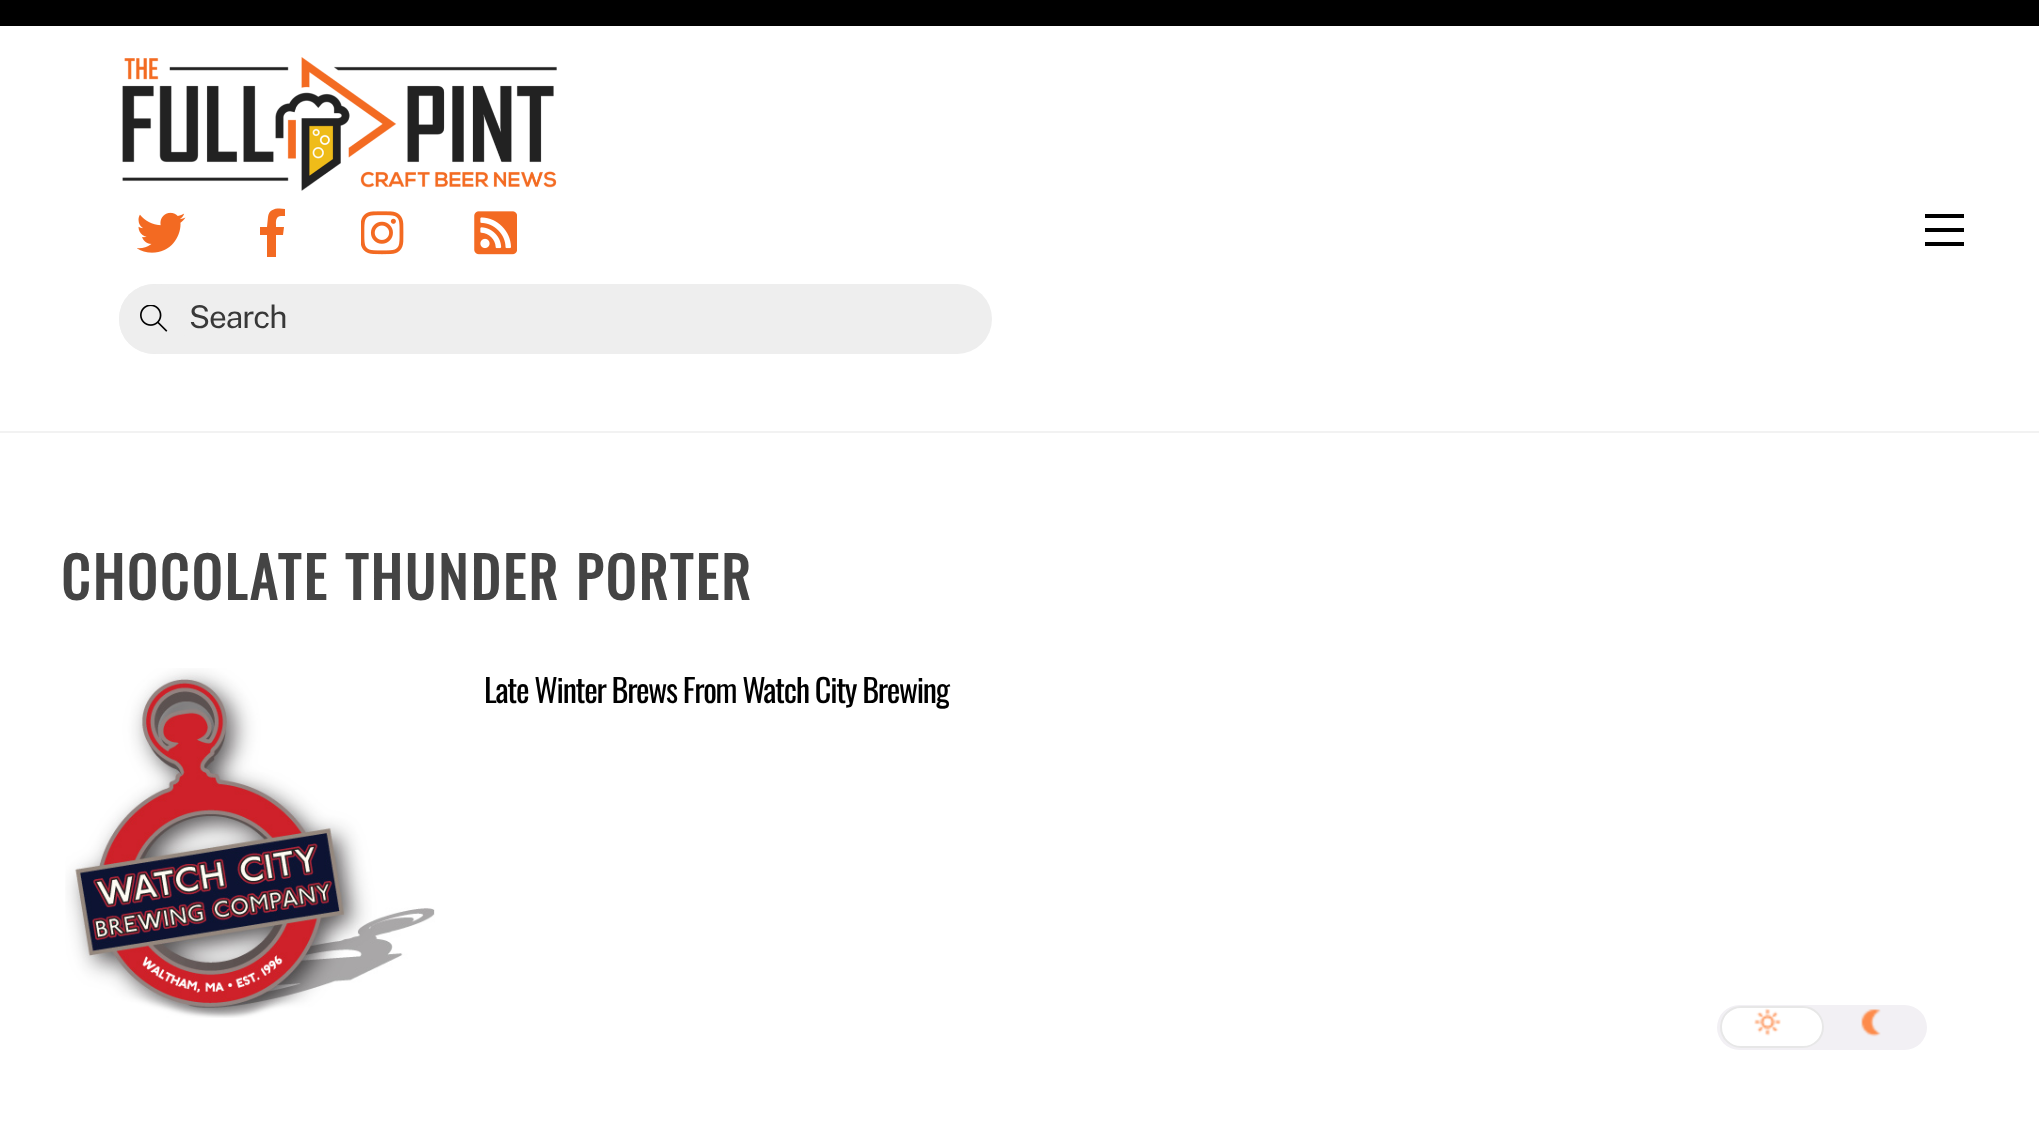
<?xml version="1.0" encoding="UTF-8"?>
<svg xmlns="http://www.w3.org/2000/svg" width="2039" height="1137">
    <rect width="100%" height="100%" fill="#FFFFFF"/>
    <rect x="0" y="0" width="2039" height="26" fill="#000000"/>
    <rect x="0" y="431" width="2039" height="2" fill="#F2F2F2"/>
    <rect x="1925" y="242" width="39" height="4" fill="#000000"/>
    <rect x="1925" y="214" width="39" height="4" fill="#000000"/>
    <rect x="1925" y="228" width="39" height="4" fill="#000000"/>
    <image x="122" y="57" width="435" height="134" href="img_01.png"/>
    <image x="137" y="212" width="49" height="41" href="img_02.png"/>
    <path d="M 281 216 C 275 216 276 223 276 227 H 284 L 283 235 H 276 V 257 H 267 V 235 H 260 V 227 H 267 L 268 217 C 269 208 278 208 285 209 V 216 Z" fill="#F36A22"/>
    <image x="361" y="211" width="43" height="44" href="img_03.png"/>
    <image x="474" y="211" width="43" height="44" href="img_04.png"/>
    <rect x="119" y="284" width="873" height="70" rx="35" fill="#EEEEEE"/>
    <circle cx="154" cy="319" r="35" fill="#EEEEEE"/>
    <image x="140" y="305" width="28" height="27" href="img_05.png"/>
    <text x="189" y="328" font-family="Public Sans" font-size="31.5" letter-spacing="-1" fill="#383838">Search</text>
    <text x="61" y="600" font-family="Oswald" font-size="56" font-weight="700" letter-spacing="2.8" fill="#444444">CHOCOLATE THUNDER PORTER</text>
    <image x="65" y="668" width="370" height="350" href="img_06.png"/>
    <text x="484" y="703" font-family="Oswald" font-size="32.25" letter-spacing="-1.3" fill="#000000">Late Winter Brews From Watch City Brewing</text>
    <rect x="1717" y="1005" width="210" height="45" rx="22.5" fill="#F2F0F4"/>
    <rect x="1721" y="1007" width="102" height="40" rx="20" fill="#FFFFFF" stroke="#E7E7E7" stroke-width="2"/>
    <image x="1754" y="1008" width="27" height="28" href="img_07.png"/>
    <image x="1861" y="1009" width="20" height="28" href="img_08.png"/>
</svg>
